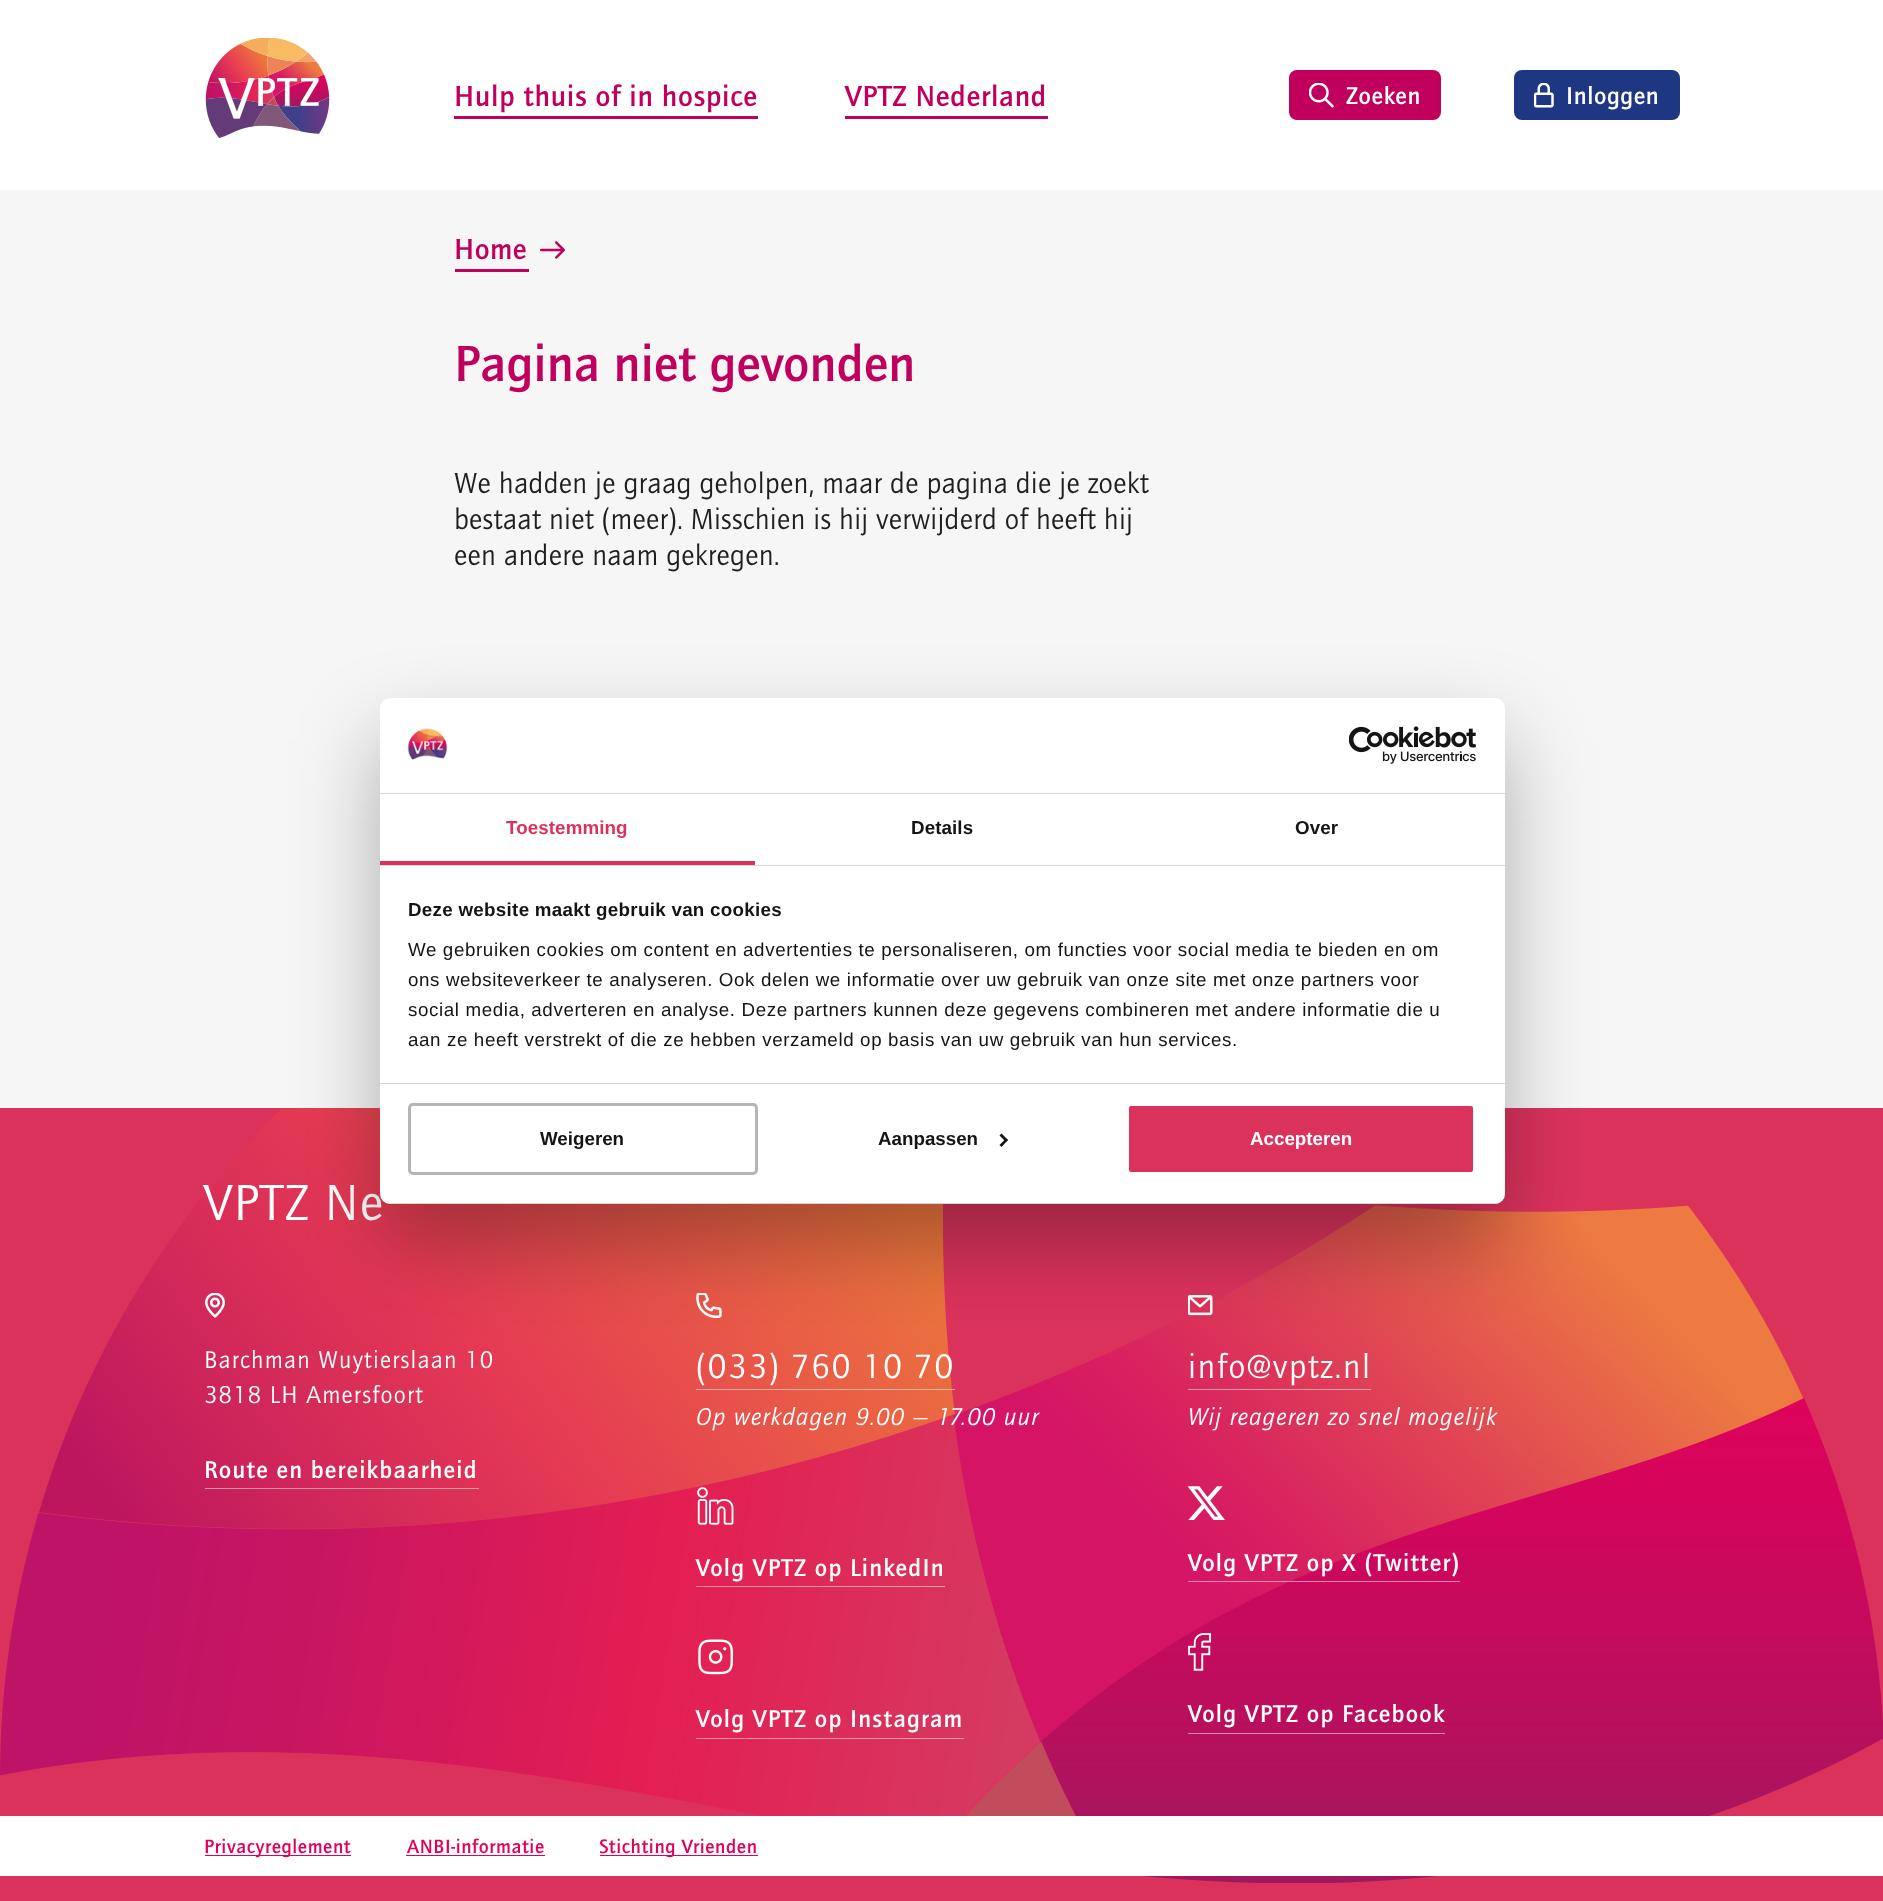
<?xml version="1.0" encoding="UTF-8"?>
<svg xmlns="http://www.w3.org/2000/svg" width="1883" height="1901">
    <defs>
        <filter id="blur1" x="-50%" y="-200%" width="200%" height="500%"><feGaussianBlur stdDeviation="42.5"/></filter>
        <clipPath id="clip1"><rect x="380" y="698" width="1125" height="506" rx="10"/></clipPath>
    </defs>
    <rect width="100%" height="100%" fill="#F6F6F6"/>
    <rect x="0" y="0" width="1883" height="190" fill="#FFFFFF"/>
    <image x="205" y="38" width="125" height="100" href="img_01.png"/>
    <text x="454" y="106" font-family="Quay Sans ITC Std" font-size="30" font-weight="500" letter-spacing="0.75" fill="#C0005C">Hulp thuis of in hospice</text>
    <rect x="454" y="116" width="304" height="3" fill="#C0005C"/>
    <text x="845" y="106" font-family="Quay Sans ITC Std" font-size="30" font-weight="500" letter-spacing="0.75" fill="#C0005C">VPTZ Nederland</text>
    <rect x="845" y="116" width="203" height="3" fill="#C0005C"/>
    <rect x="1289" y="70" width="152" height="50" rx="8" fill="#C0005C"/>
    <image x="1309" y="83" width="25" height="25" href="img_02.png"/>
    <text x="1346" y="104" font-family="Quay Sans ITC Std" font-size="25" font-weight="500" letter-spacing="0.62" fill="#FFFFFF">Zoeken</text>
    <rect x="1514" y="70" width="166" height="50" rx="8" fill="#1D3782"/>
    <image x="1534" y="83" width="20" height="25" href="img_03.png"/>
    <text x="1566" y="104" font-family="Quay Sans ITC Std" font-size="25" font-weight="500" letter-spacing="0.62" fill="#FFFFFF">Inloggen</text>
    <text x="454" y="259" font-family="Quay Sans ITC Std" font-size="30" font-weight="500" letter-spacing="0.5" fill="#C0005C">Home</text>
    <rect x="455" y="269" width="74" height="3" fill="#C0005C"/>
    <image x="540" y="241" width="25" height="18" href="img_04.png"/>
    <text x="454" y="381" font-family="Quay Sans ITC Std" font-size="52.5" font-weight="500" letter-spacing="0.25" fill="#C0005C">Pagina niet gevonden</text>
    <text font-family="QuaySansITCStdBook" font-size="30" letter-spacing="0.25" fill="#1F1F1F">
        <tspan x="454" y="493">We hadden je graag geholpen, maar de pagina die je zoekt</tspan>
        <tspan x="454" y="529">bestaat niet (meer). Misschien is hij verwijderd of heeft hij</tspan>
        <tspan x="454" y="565">een andere naam gekregen.</tspan>
    </text>
    <rect x="0" y="1108" width="1883" height="793" fill="#DB325C"/>
    <image x="0" y="1108" width="1883" height="775" href="img_05.png"/>
    <text x="204" y="1220" font-family="QuaySansITCStdBook" font-size="52.5" letter-spacing="1.5" fill="#FFFFFF">VPTZ Ne</text>
    <image x="205" y="1293" width="20" height="25" href="img_06.png"/>
    <text font-family="QuaySansITCStdBook" font-size="25" letter-spacing="1.25" fill="#FFFFFF">
        <tspan x="204" y="1368">Barchman Wuytierslaan 10</tspan>
        <tspan x="204" y="1403">3818 LH Amersfoort</tspan>
    </text>
    <text x="204" y="1478" font-family="Quay Sans ITC Std" font-size="25" font-weight="500" letter-spacing="1.25" fill="#FFFFFF">Route en bereikbaarheid</text>
    <rect x="205" y="1488" width="274" height="1" fill="#FFFFFF" fill-opacity="0.5"/>
    <image x="696" y="1293" width="26" height="25" href="img_07.png"/>
    <text x="696" y="1378" font-family="QuaySansITCStdBook" font-size="35" letter-spacing="1.75" fill="#FFFFFF">(033) 760 10 70</text>
    <rect x="696" y="1389" width="259" height="1" fill="#FFFFFF" fill-opacity="0.5"/>
    <text x="696" y="1425" font-family="Quay Sans ITC Std" font-size="25" font-style="italic" letter-spacing="1.25" fill="#FFFFFF">Op werkdagen 9.00 — 17.00 uur</text>
    <image x="697" y="1487" width="37" height="38" href="img_08.png"/>
    <text x="696" y="1576" font-family="Quay Sans ITC Std" font-size="25" font-weight="500" letter-spacing="1.25" fill="#FFFFFF">Volg VPTZ op LinkedIn</text>
    <rect x="696" y="1586" width="249" height="1" fill="#FFFFFF" fill-opacity="0.5"/>
    <image x="698" y="1639" width="35" height="36" href="img_09.png"/>
    <text x="696" y="1727" font-family="Quay Sans ITC Std" font-size="25" font-weight="500" letter-spacing="1.25" fill="#FFFFFF">Volg VPTZ op Instagram</text>
    <rect x="696" y="1738" width="268" height="1" fill="#FFFFFF" fill-opacity="0.5"/>
    <image x="1188" y="1295" width="25" height="21" href="img_10.png"/>
    <text x="1188" y="1378" font-family="QuaySansITCStdBook" font-size="35" letter-spacing="1.75" fill="#FFFFFF">info@vptz.nl</text>
    <rect x="1188" y="1389" width="183" height="1" fill="#FFFFFF" fill-opacity="0.5"/>
    <text x="1188" y="1425" font-family="Quay Sans ITC Std" font-size="25" font-style="italic" letter-spacing="1.25" fill="#FFFFFF">Wij reageren zo snel mogelijk</text>
    <image x="1188" y="1486" width="37" height="34" href="img_11.png"/>
    <text x="1188" y="1571" font-family="Quay Sans ITC Std" font-size="25" font-weight="500" letter-spacing="1.25" fill="#FFFFFF">Volg VPTZ op X (Twitter)</text>
    <rect x="1188" y="1581" width="272" height="1" fill="#FFFFFF" fill-opacity="0.5"/>
    <image x="1188" y="1633" width="23" height="38" href="img_12.png"/>
    <text x="1188" y="1722" font-family="Quay Sans ITC Std" font-size="25" font-weight="500" letter-spacing="1.25" fill="#FFFFFF">Volg VPTZ op Facebook</text>
    <rect x="1188" y="1733" width="257" height="1" fill="#DB88AE"/>
    <rect x="0" y="1816" width="1883" height="60" fill="#FFFFFF"/>
    <rect x="205" y="1855" width="146" height="1" fill="#E3005B"/>
    <text x="204" y="1853" font-family="Quay Sans ITC Std" font-size="20" font-weight="500" letter-spacing="0.62" fill="#E3005B">Privacyreglement</text>
    <text x="407" y="1853" font-family="Quay Sans ITC Std" font-size="20" font-weight="500" letter-spacing="0.62" fill="#E3005B">ANBI-informatie</text>
    <rect x="406" y="1855" width="139" height="1" fill="#E3005B"/>
    <rect x="600" y="1855" width="158" height="1" fill="#E3005B"/>
    <text x="599" y="1853" font-family="Quay Sans ITC Std" font-size="20" font-weight="500" letter-spacing="0.62" fill="#E3005B">Stichting Vrienden</text>
    <rect x="380" y="738" width="1125" height="506" rx="10" fill="#000000" fill-opacity="0.3" filter="url(#blur1)"/>
    <rect x="380" y="698" width="1125" height="506" rx="10" fill="#FFFFFF"/>
    <rect x="380" y="793" width="1125" height="1" fill="#D6D6D6"/>
    <image x="407" y="728" width="41" height="32" href="img_13.png"/>
    <image x="1349" y="726" width="127" height="38" href="img_14.png"/>
    <rect x="380" y="865" width="1125" height="1" fill="#D6D6D6"/>
    <rect x="380" y="861" width="375" height="4" fill="#DB325C"/>
    <text x="506" y="834" font-family="Liberation Sans" font-size="18.75" font-weight="700" letter-spacing="0.1" fill="#DB325C">Toestemming</text>
    <text x="911" y="834" font-family="Liberation Sans" font-size="18.75" font-weight="700" letter-spacing="0.1" fill="#141414">Details</text>
    <text x="1295" y="834" font-family="Liberation Sans" font-size="18.75" font-weight="700" letter-spacing="0.1" fill="#141414">Over</text>
    <rect x="380" y="1083" width="1125" height="1" fill="#D6D6D6"/>
    <text x="408" y="916" font-family="Liberation Sans" font-size="18.75" font-weight="700" letter-spacing="0.3" fill="#141414">Deze website maakt gebruik van cookies</text>
    <text font-family="Liberation Sans" font-size="18.75" letter-spacing="0.62" fill="#141414">
        <tspan x="408" y="956">We gebruiken cookies om content en advertenties te personaliseren, om functies voor social media te bieden en om</tspan>
        <tspan x="408" y="986">ons websiteverkeer te analyseren. Ook delen we informatie over uw gebruik van onze site met onze partners voor</tspan>
        <tspan x="408" y="1016">social media, adverteren en analyse. Deze partners kunnen deze gegevens combineren met andere informatie die u</tspan>
        <tspan x="408" y="1046">aan ze heeft verstrekt of die ze hebben verzameld op basis van uw gebruik van hun services.</tspan>
    </text>
    <g clip-path="url(#clip1)">
        <rect x="380" y="1203" width="1125" height="1" fill="#D6D6D6"/>
    </g>
    <rect x="409.5" y="1104.5" width="347" height="69" rx="3.5" fill="none" stroke="#B5B5B5" stroke-width="3"/>
    <text x="540" y="1145" font-family="Liberation Sans" font-size="18.75" font-weight="700" fill="#141414">Weigeren</text>
    <text x="878" y="1145" font-family="Liberation Sans" font-size="18.75" font-weight="700" fill="#141414">Aanpassen</text>
    <path d="M 1001.5 1133.5 L 1008 1140 L 1006 1142 L 999.5 1135.5 Z" fill="#141414"/>
    <path d="M 1006 1138.5 L 1008 1140 L 1001.5 1147 L 999.5 1145 Z" fill="#141414"/>
    <rect x="1127.5" y="1104.5" width="347" height="69" rx="3.5" fill="#DB325C" stroke="#FFFFFF" stroke-width="3"/>
    <text x="1250" y="1145" font-family="Liberation Sans" font-size="18.75" font-weight="700" fill="#FFFFFF">Accepteren</text>
</svg>
